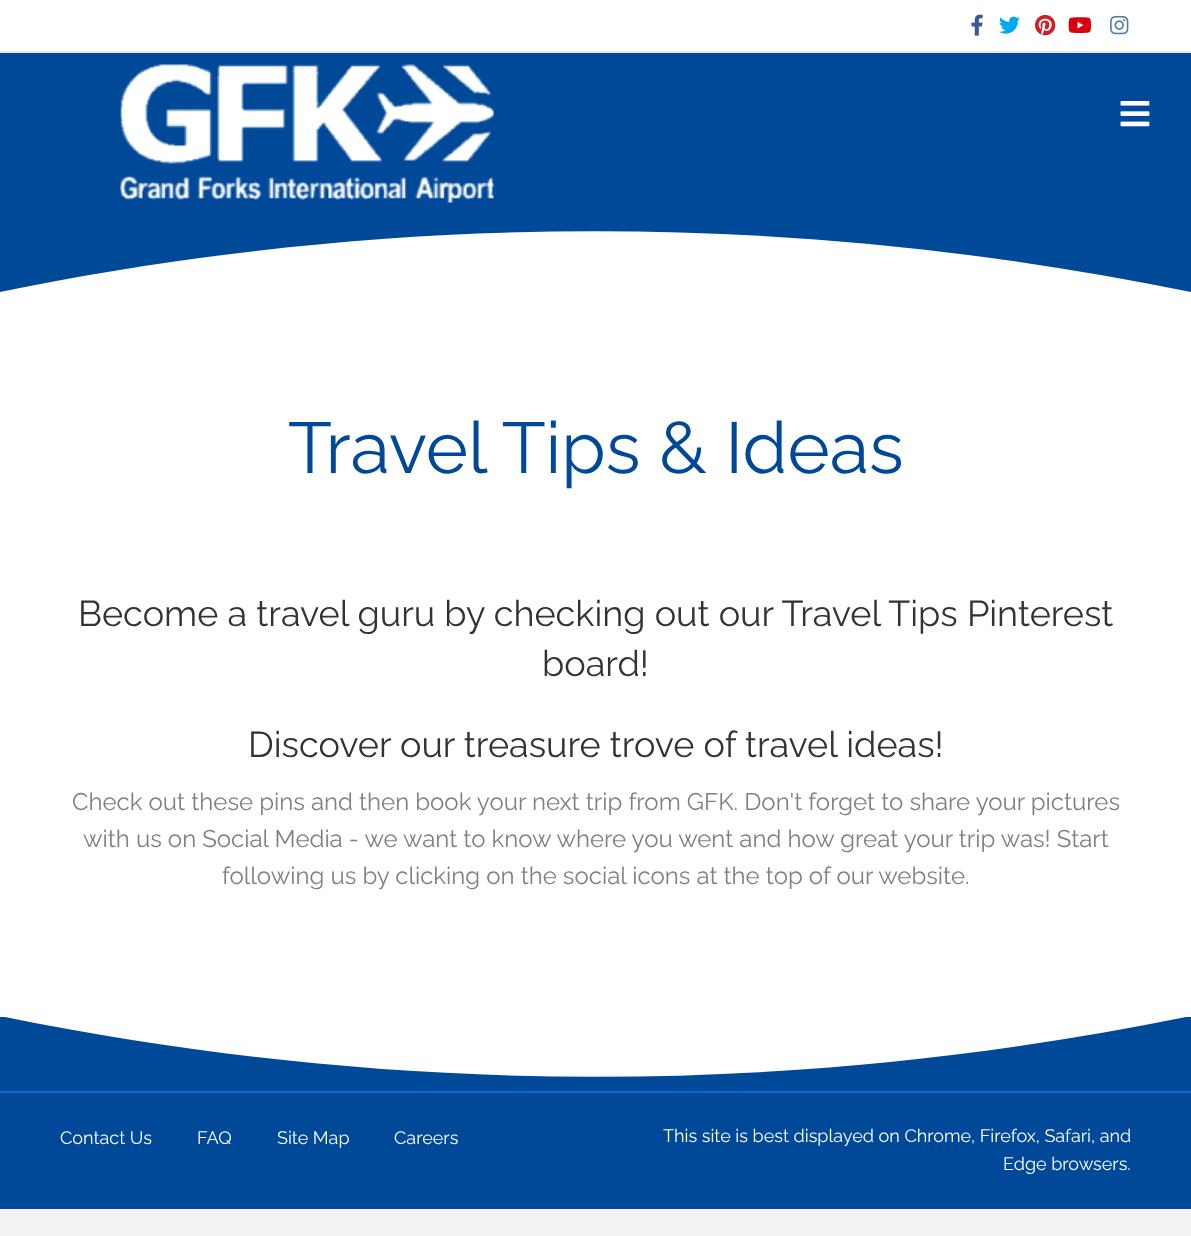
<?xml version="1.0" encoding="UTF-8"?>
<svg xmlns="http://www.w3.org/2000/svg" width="1191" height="1236">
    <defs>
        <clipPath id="clip1"><rect x="0" y="1017" width="1191" height="74"/></clipPath>
    </defs>
    <rect width="100%" height="100%" fill="#F2F2F2"/>
    <rect x="0" y="0" width="1191" height="51" fill="#FFFFFF"/>
    <rect x="0" y="51" width="1191" height="2" fill="#E6E6E6"/>
    <image x="971" y="14" width="12" height="22" href="img_01.png"/>
    <image x="999" y="16" width="21" height="18" href="img_02.png"/>
    <image x="1035" y="15" width="21" height="21" href="img_03.png"/>
    <image x="1068" y="17" width="23" height="16" href="img_04.png"/>
    <image x="1110" y="15" width="19" height="20" href="img_05.png"/>
    <rect x="0" y="53" width="1191" height="165" fill="#004999"/>
    <image x="120" y="64" width="374" height="139" href="img_06.png"/>
    <image x="1120" y="101" width="30" height="26" href="img_07.png"/>
    <rect x="0" y="231" width="1191" height="846" fill="#FFFFFF"/>
    <path d="M 0 218 H 1191 V 292 C 796 211 395 211 0 292 Z" fill="#004999"/>
    <text x="288" y="473" font-family="Raleway" font-size="72" fill="#004999">Travel Tips &amp; Ideas</text>
    <text x="78" y="626" font-family="Raleway" font-size="36" fill="#333333">Become a travel guru by checking out our Travel Tips Pinterest</text>
    <text x="542" y="676" font-family="Raleway" font-size="36" fill="#333333">board!</text>
    <text x="248" y="757" font-family="Raleway" font-size="36" fill="#333333">Discover our treasure trove of travel ideas!</text>
    <text x="72" y="810" font-family="Raleway" font-size="24" fill="#808080">Check out these pins and then book your next trip from GFK. Don't forget to share your pictures</text>
    <text x="83" y="847" font-family="Raleway" font-size="24" fill="#808080">with us on Social Media - we want to know where you went and how great your trip was! Start</text>
    <text x="222" y="884" font-family="Raleway" font-size="24" fill="#808080">following us by clicking on the social icons at the top of our website.</text>
    <g clip-path="url(#clip1)">
        <path d="M 0 1091 H 1191 V 1016 C 796 1097 395 1097 0 1016 Z" fill="#004999"/>
    </g>
    <rect x="0" y="1093" width="1191" height="116" fill="#004999"/>
    <rect x="0" y="1091" width="1191" height="2" fill="#0069DB"/>
    <text x="60" y="1144" font-family="Raleway" font-size="18" fill="#FFFFFF">Contact Us</text>
    <text x="197" y="1144" font-family="Raleway" font-size="18" fill="#FFFFFF">FAQ</text>
    <text x="277" y="1144" font-family="Raleway" font-size="18" fill="#FFFFFF">Site Map</text>
    <text x="394" y="1144" font-family="Raleway" font-size="18" fill="#FFFFFF">Careers</text>
    <text x="663" y="1142" font-family="Raleway" font-size="18" fill="#FFFFFF">This site is best displayed on Chrome, Firefox, Safari, and</text>
    <text x="1003" y="1170" font-family="Raleway" font-size="18" fill="#FFFFFF">Edge browsers.</text>
</svg>
